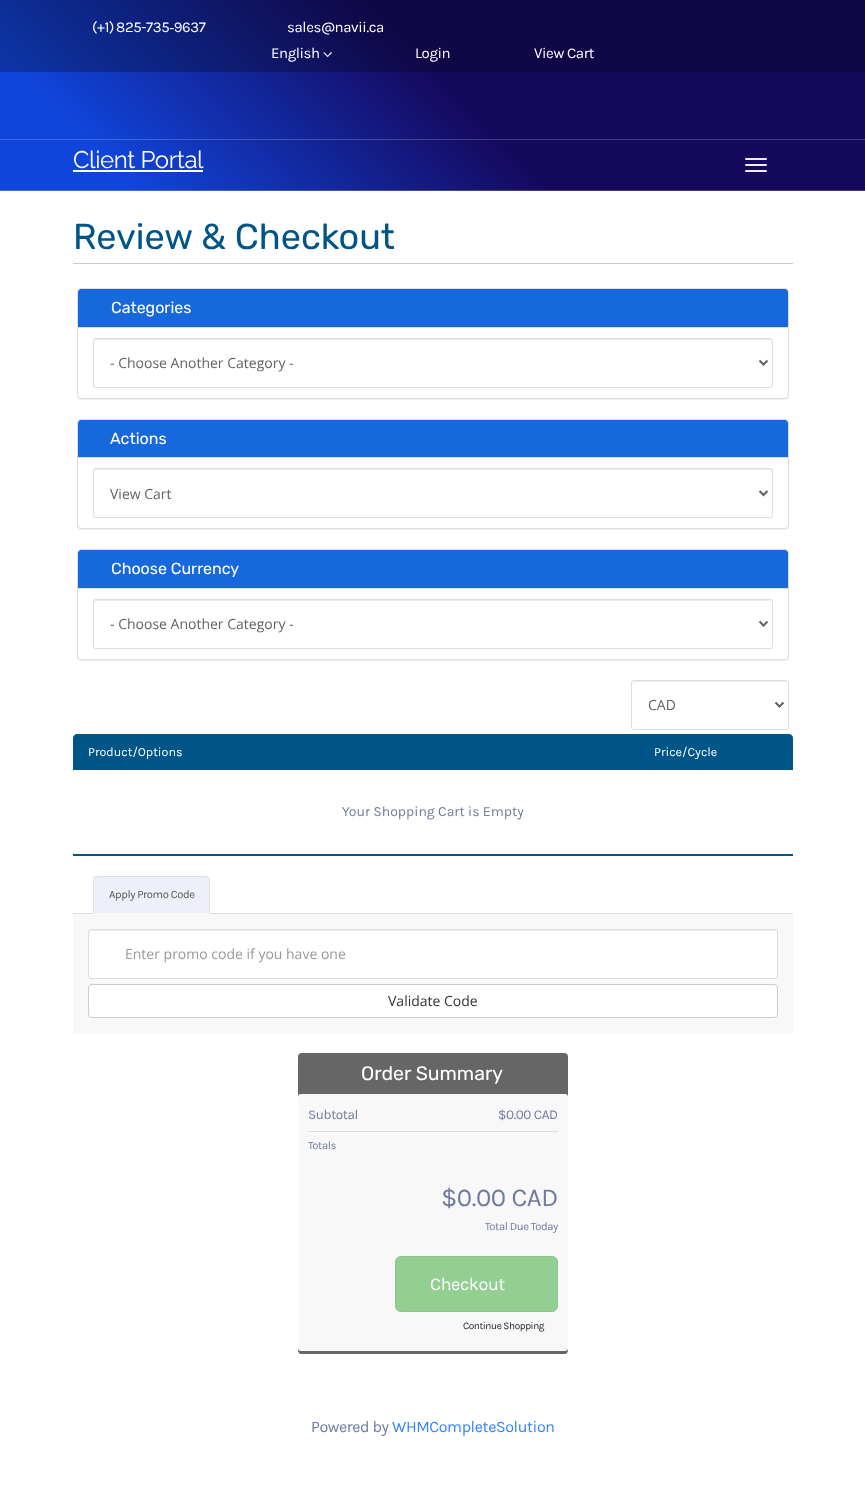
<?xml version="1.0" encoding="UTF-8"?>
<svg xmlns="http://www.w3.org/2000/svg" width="865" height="1495">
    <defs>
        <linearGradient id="g1" gradientUnits="userSpaceOnUse" x1="169" y1="360" x2="697" y2="-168"><stop offset="0" stop-color="#1045DB"/><stop offset="0.13" stop-color="#1045DB"/><stop offset="0.52" stop-color="#15095E"/><stop offset="1" stop-color="#15095E"/></linearGradient>
        <linearGradient id="g2" gradientUnits="userSpaceOnUse" x1="169" y1="360" x2="697" y2="-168"><stop offset="0" stop-color="#406AE2"/><stop offset="0.13" stop-color="#406AE2"/><stop offset="0.52" stop-color="#443A7E"/><stop offset="1" stop-color="#443A7E"/></linearGradient>
        <linearGradient id="g3" gradientUnits="userSpaceOnUse" x1="169" y1="360" x2="697" y2="-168"><stop offset="0" stop-color="#0C34A4"/><stop offset="0.13" stop-color="#0C34A4"/><stop offset="0.52" stop-color="#100747"/><stop offset="1" stop-color="#100747"/></linearGradient>
        <filter id="blur1" x="-50%" y="-200%" width="200%" height="500%"><feGaussianBlur stdDeviation="0.5"/></filter>
    </defs>
    <rect width="100%" height="100%" fill="#FFFFFF"/>
    <rect x="0" y="72" width="865" height="118" fill="url(#g1)"/>
    <rect x="0" y="190" width="865" height="1" fill="url(#g2)"/>
    <rect x="0" y="139" width="865" height="1" fill="url(#g2)"/>
    <rect x="0" y="0" width="865" height="72" fill="url(#g3)"/>
    <text x="92" y="32" word-spacing="-1" font-family="Karla" font-size="15" letter-spacing="-0.4" fill="#FFFFFF">(+1) 825-735‑9637</text>
    <text x="287" y="32" font-family="Karla" font-size="15" letter-spacing="-0.4" fill="#FFFFFF">sales@navii.ca</text>
    <text x="271" y="58" font-family="Karla" font-size="15" letter-spacing="-0.4" fill="#FFFFFF">English</text>
    <path d="M 331 52 L 332 53 L 327.5 57 L 327 56.5 Z" fill="#FFFFFF"/>
    <path d="M 324 52 L 328.5 56.5 L 327.5 57 L 323.5 53 Z" fill="#FFFFFF"/>
    <text x="415" y="58" font-family="Karla" font-size="15" letter-spacing="-0.4" fill="#FFFFFF">Login</text>
    <text x="534" y="58" font-family="Karla" font-size="15" letter-spacing="-0.4" fill="#FFFFFF">View Cart</text>
    <text x="73" y="168" font-family="Raleway" font-size="24" letter-spacing="-0.4" fill="#FFFFFF">Client Portal</text>
    <rect x="73" y="170" width="130" height="2" fill="#FFFFFF"/>
    <rect x="745" y="158" width="22" height="2" rx="1" fill="#EEEEEE"/>
    <rect x="745" y="164" width="22" height="2" rx="1" fill="#EEEEEE"/>
    <rect x="745" y="170" width="22" height="2" rx="1" fill="#EEEEEE"/>
    <rect x="73" y="263" width="720" height="1" fill="#CCCCCC"/>
    <text x="73" y="249" font-family="Rubik" font-size="36" fill="#005588">Review &amp; Checkout</text>
    <rect x="77" y="289" width="712" height="111" rx="4" fill="#000000" fill-opacity="0.05" filter="url(#blur1)"/>
    <rect x="77.5" y="288.5" width="711" height="110" rx="3.5" fill="#FFFFFF" stroke="#DDDDDD"/>
    <path d="M 81 289 H 785 C 786.5 289 788 290.5 788 292 V 328 H 78 V 292 C 78 290.5 79.5 289 81 289 Z" fill="#1868DD"/>
    <rect x="78" y="327" width="710" height="1" fill="#DDDDDD"/>
    <text x="111" y="313" font-family="Rubik" font-size="16" fill="#FFFFFF">Categories</text>
    <path d="M 96 340 H 770 C 771 340 772 341 772 342 C 772 341 772 339 770 339 H 96 C 94 339 94 341 94 342 C 94 341 95 340 96 340 Z" fill="#ECECEC"/>
    <rect x="93.5" y="338.5" width="679" height="49" rx="2.5" fill="none" stroke="#DDDDDD"/>
    <path d="M 759.5 360.5 L 763.5 364.5 L 767.5 360.5" fill="none" stroke="#626262" stroke-width="2"/>
    <text x="110" y="368" font-family="Open Sans" font-size="14" fill="#626262">- Choose Another Category -</text>
    <rect x="77" y="420" width="712" height="110" rx="4" fill="#000000" fill-opacity="0.05" filter="url(#blur1)"/>
    <rect x="77.5" y="419.5" width="711" height="109" rx="3.5" fill="#FFFFFF" stroke="#DDDDDD"/>
    <path d="M 81 420 H 785 C 786.5 420 788 421.5 788 423 V 458 H 78 V 423 C 78 421.5 79.5 420 81 420 Z" fill="#1868DD"/>
    <rect x="78" y="457" width="710" height="1" fill="#DDDDDD"/>
    <text x="110" y="444" font-family="Rubik" font-size="16" fill="#FFFFFF">Actions</text>
    <path d="M 96 470 H 770 C 771 470 772 471 772 472 C 772 471 772 469 770 469 H 96 C 94 469 94 471 94 472 C 94 471 95 470 96 470 Z" fill="#ECECEC"/>
    <rect x="93.5" y="468.5" width="679" height="49" rx="2.5" fill="none" stroke="#DDDDDD"/>
    <path d="M 759.5 491 L 763.5 495 L 767.5 491" fill="none" stroke="#626262" stroke-width="2"/>
    <text x="110" y="499" font-family="Open Sans" font-size="14" fill="#626262">View Cart</text>
    <rect x="77" y="550" width="712" height="111" rx="4" fill="#000000" fill-opacity="0.05" filter="url(#blur1)"/>
    <rect x="77.5" y="549.5" width="711" height="110" rx="3.5" fill="#FFFFFF" stroke="#DDDDDD"/>
    <path d="M 81 550 H 785 C 786.5 550 788 551.5 788 553 V 589 H 78 V 553 C 78 551.5 79.5 550 81 550 Z" fill="#1868DD"/>
    <rect x="78" y="588" width="710" height="1" fill="#DDDDDD"/>
    <text x="111" y="574" font-family="Rubik" font-size="16" fill="#FFFFFF">Choose Currency</text>
    <path d="M 96 601 H 770 C 771 601 772 602 772 603 C 772 602 772 600 770 600 H 96 C 94 600 94 602 94 603 C 94 602 95 601 96 601 Z" fill="#ECECEC"/>
    <rect x="93.5" y="599.5" width="679" height="49" rx="2.5" fill="none" stroke="#DDDDDD"/>
    <path d="M 759.5 621.5 L 763.5 625.5 L 767.5 621.5" fill="none" stroke="#626262" stroke-width="2"/>
    <text x="110" y="629" font-family="Open Sans" font-size="14" fill="#626262">- Choose Another Category -</text>
    <path d="M 634 682 H 786 C 787 682 788 683 788 684 C 788 683 788 681 786 681 H 634 C 632 681 632 683 632 684 C 632 683 633 682 634 682 Z" fill="#ECECEC"/>
    <rect x="631.5" y="680.5" width="157" height="49" rx="2.5" fill="none" stroke="#DDDDDD"/>
    <path d="M 775.5 702.5 L 779.5 706.5 L 783.5 702.5" fill="none" stroke="#626262" stroke-width="2"/>
    <text x="648" y="710" font-family="Open Sans" font-size="14" fill="#626262">CAD</text>
    <path d="M 77 734 H 789 C 791 734 793 736 793 738 V 770 H 73 V 738 C 73 736 75 734 77 734 Z" fill="#005588"/>
    <text x="88" y="756" font-family="Karla" font-size="12.5" fill="#FFFFFF">Product/Options</text>
    <text x="654" y="756" font-family="Karla" font-size="12.5" fill="#FFFFFF">Price/Cycle</text>
    <rect x="73" y="854" width="720" height="2" fill="#005588"/>
    <text x="342" y="816" font-family="Karla" font-size="14" fill="#70799F">Your Shopping Cart is Empty</text>
    <rect x="73" y="913" width="720" height="1" fill="#DDDDDD"/>
    <path d="M 97 876 H 206 C 208 876 210 878 210 880 V 914 H 93 V 880 C 93 878 95 876 97 876 Z" fill="#EEF0F9"/>
    <path d="M 97 876 L 94 877 L 95 878 L 97 877 H 206 L 208 878 L 209 877 L 206 876 Z" fill="#DEE2E6"/>
    <path d="M 210 914 V 880 C 210 879 209.5 878 209 877 L 208 878 C 209 878 209 879 209 880 V 913 Z" fill="#DEE2E6"/>
    <path d="M 210 914 L 209 913 H 94 L 93 914 Z" fill="#F8F8F8"/>
    <path d="M 93 914 L 94 913 V 880 C 94 879 94 878 95 878 L 94 877 C 93.5 878 93 879 93 880 Z" fill="#DEE2E6"/>
    <text x="109" y="898" font-family="Karla" font-size="11.25" letter-spacing="-0.4" fill="#555555">Apply Promo Code</text>
    <rect x="73" y="914" width="720" height="119" fill="#F8F8F8"/>
    <rect x="88" y="929" width="690" height="50" rx="3" fill="#FFFFFF"/>
    <path d="M 91 931 H 775 C 776 931 777 932 777 933 C 777 932 777 930 775 930 H 91 C 89 930 89 932 89 933 C 89 932 90 931 91 931 Z" fill="#ECECEC"/>
    <rect x="88.5" y="929.5" width="689" height="49" rx="2.5" fill="none" stroke="#DDDDDD"/>
    <text x="125" y="959" font-family="Open Sans" font-size="14" fill="#999999">Enter promo code if you have one</text>
    <rect x="88.5" y="984.5" width="689" height="33" rx="3.5" fill="#FFFFFF" stroke="#CCCCCC"/>
    <text x="388" y="1006" font-family="Open Sans" font-size="14" fill="#333333">Validate Code</text>
    <rect x="298" y="1053" width="270" height="301" rx="4" fill="#666666"/>
    <rect x="300" y="1353" width="266" height="1" fill="#666666"/>
    <text x="361" y="1080" font-family="Rubik" font-size="19.5" fill="#FFFFFF">Order Summary</text>
    <rect x="298" y="1094" width="270" height="257" rx="3" fill="#F8F8F8"/>
    <rect x="308" y="1131" width="250" height="1" fill="#DDDDDD"/>
    <text x="308" y="1119" font-family="Karla" font-size="13.5" letter-spacing="-0.4" fill="#70799F">Subtotal</text>
    <text x="498" y="1119" font-family="Karla" font-size="13.5" letter-spacing="-0.4" fill="#70799F">$0.00 CAD</text>
    <text x="308" y="1149" font-family="Karla" font-size="11.25" letter-spacing="-0.4" fill="#70799F">Totals</text>
    <text x="441" y="1206" font-family="Karla" font-size="25.75" letter-spacing="-0.4" fill="#70799F">$0.00 CAD</text>
    <text x="485" y="1230" font-family="Karla" font-size="11.25" letter-spacing="-0.4" fill="#70799F">Total Due Today</text>
    <rect x="395.5" y="1256.5" width="162" height="55" rx="5.5" fill="#93CE93" stroke="#88C888"/>
    <text x="430" y="1290" font-family="Karla" font-size="18" letter-spacing="-0.4" fill="#FFFFFF">Checkout</text>
    <text x="463" y="1329" font-family="Karla" font-size="10" letter-spacing="-0.4" fill="#222222">Continue Shopping</text>
    <text x="311" y="1432" font-family="Karla" font-size="16" letter-spacing="-0.4" fill="#70799F">Powered by</text>
    <text x="392" y="1432" font-family="Karla" font-size="16" letter-spacing="-0.4" fill="#3482FF">WHMCompleteSolution</text>
</svg>
